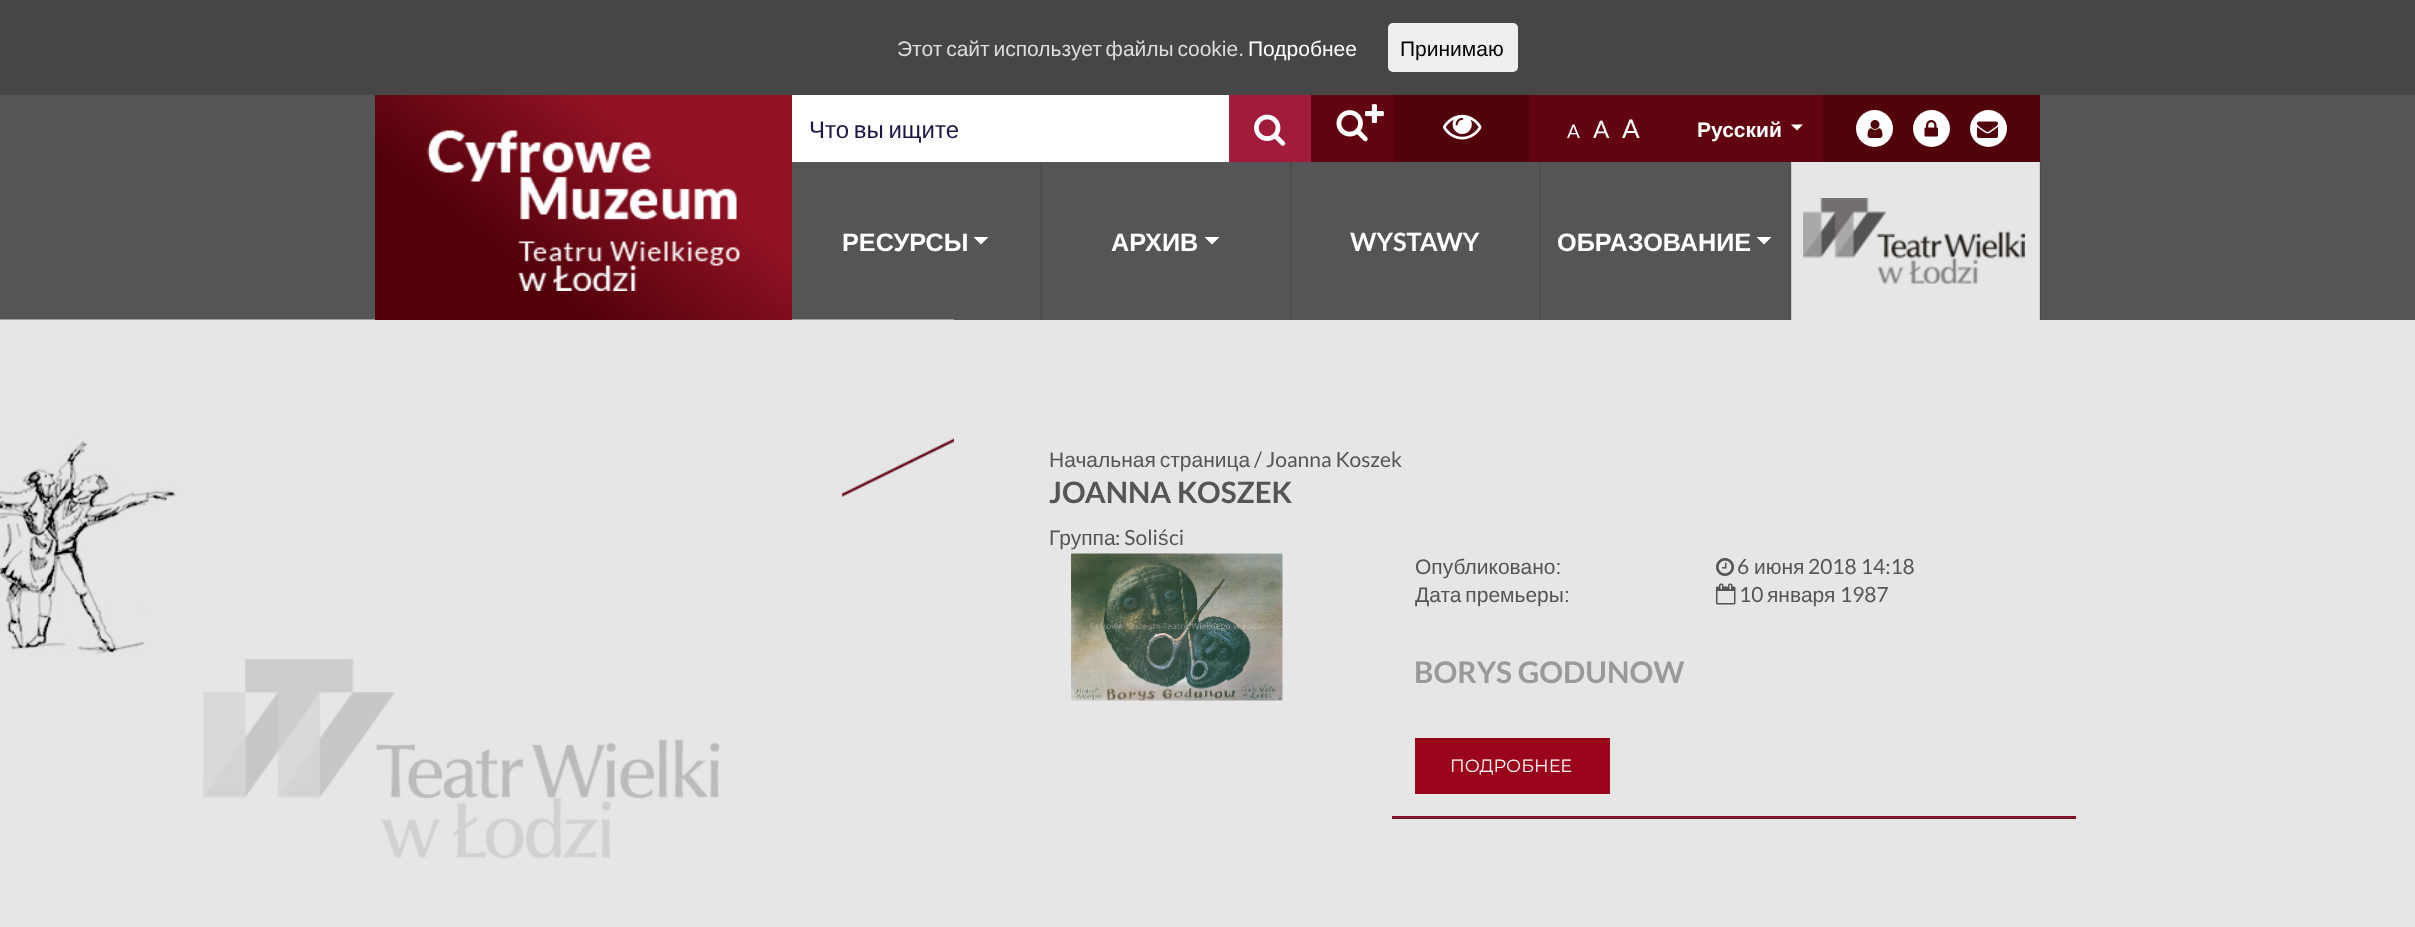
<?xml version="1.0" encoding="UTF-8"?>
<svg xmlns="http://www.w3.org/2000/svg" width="2415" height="927">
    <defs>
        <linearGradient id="g1" gradientUnits="userSpaceOnUse" x1="450" y1="378" x2="717" y2="36"><stop offset="0.3" stop-color="#52010B"/><stop offset="0.7" stop-color="#901223"/></linearGradient>
    </defs>
    <rect width="100%" height="100%" fill="#555557"/>
    <rect x="0" y="0" width="2415" height="95" fill="#464646"/>
    <text x="897" y="56" word-spacing="-2" font-family="Liberation Sans" font-size="21" fill="#DDDDDD">Этот сайт использует файлы cookie.</text>
    <text x="1248" y="56" font-family="Liberation Sans" font-size="21" fill="#FFFFFF">Подробнее</text>
    <rect x="1388" y="23" width="130" height="49" rx="5" fill="#EFEFEF"/>
    <text x="1400" y="56" font-family="Liberation Sans" font-size="21" fill="#000000">Принимаю</text>
    <rect x="1790" y="162" width="1" height="158" fill="#4D4D4E"/>
    <rect x="2040" y="162" width="1" height="158" fill="#4D4D4E"/>
    <rect x="0" y="320" width="2415" height="607" fill="#E6E6E6"/>
    <image x="0" y="319" width="954" height="540" href="img_10.png"/>
    <rect x="375" y="95" width="417" height="225" fill="url(#g1)"/>
    <image x="427" y="130" width="313" height="161" href="img_01.png"/>
    <rect x="792" y="95" width="437" height="67" fill="#FFFFFF"/>
    <text x="809" y="138" word-spacing="-2" font-family="Liberation Sans" font-size="24" fill="#1F1745">Что вы ищите</text>
    <rect x="1229" y="95" width="82" height="67" fill="#A11C3B"/>
    <image x="1254" y="114" width="32" height="32" href="img_02.png"/>
    <rect x="1311" y="95" width="83" height="67" fill="#620311"/>
    <image x="1336" y="110" width="32" height="32" href="img_03.png"/>
    <image x="1365" y="104" width="19" height="19" href="img_04.png"/>
    <rect x="1394" y="95" width="135" height="67" fill="#51020B"/>
    <image x="1443" y="114" width="39" height="26" href="img_05.png"/>
    <rect x="1529" y="95" width="294" height="67" fill="#620311"/>
    <text x="1567" y="138" font-family="Lato" font-size="19" fill="#FFFFFF">A</text>
    <text x="1593" y="138" font-family="Lato" font-size="24" fill="#FFFFFF">A</text>
    <text x="1622" y="138" font-family="Lato" font-size="26" fill="#FFFFFF">A</text>
    <text x="1697" y="137" font-family="Liberation Sans" font-size="21" font-weight="700" fill="#FFFFFF">Русский</text>
    <path d="M 1791 124.5 H 1803 L 1797 130.5 Z" fill="#FFFFFF"/>
    <rect x="1823" y="95" width="217" height="67" fill="#51020B"/>
    <circle cx="1874.5" cy="128.5" r="18.5" fill="#FFFFFF"/>
    <image x="1867" y="120" width="16" height="18" href="img_06.png"/>
    <circle cx="1931.5" cy="128.5" r="18.5" fill="#FFFFFF"/>
    <image x="1924" y="120" width="14" height="17" href="img_07.png"/>
    <circle cx="1988.5" cy="128.5" r="18.5" fill="#FFFFFF"/>
    <image x="1977" y="121" width="21" height="17" href="img_08.png"/>
    <rect x="1040" y="162" width="2" height="158" fill="#4D4D4E"/>
    <text x="842" y="251" font-family="Liberation Sans" font-size="25.25" font-weight="700" fill="#FFFFFF">РЕСУРСЫ</text>
    <path d="M 973.5 237 H 988.5 L 981 244.5 Z" fill="#FFFFFF"/>
    <rect x="1290" y="162" width="2" height="158" fill="#4D4D4E"/>
    <text x="1111" y="251" font-family="Liberation Sans" font-size="25.25" font-weight="700" fill="#FFFFFF">АРХИВ</text>
    <path d="M 1204.5 237 H 1219.5 L 1212 244.5 Z" fill="#FFFFFF"/>
    <rect x="1539" y="162" width="2" height="158" fill="#4D4D4E"/>
    <text x="1350" y="251" font-family="Lato" font-size="25.25" font-weight="700" fill="#FFFFFF">WYSTAWY</text>
    <text x="1557" y="251" font-family="Liberation Sans" font-size="25.25" font-weight="700" fill="#FFFFFF">ОБРАЗОВАНИЕ</text>
    <path d="M 1756.5 237 H 1771.5 L 1764 244.5 Z" fill="#FFFFFF"/>
    <rect x="1792" y="162" width="247" height="158" fill="#E6E6E6"/>
    <rect x="1791" y="162" width="1" height="158" fill="#CFCFCF"/>
    <rect x="2039" y="162" width="1" height="158" fill="#CFCFCF"/>
    <image x="1803" y="198" width="222" height="86" href="img_09.png"/>
    <text x="1049" y="467" word-spacing="-2" font-family="Liberation Sans" font-size="21" fill="#555557">Начальная страница</text>
    <text x="1254" y="467" font-family="Lato" font-size="21" fill="#555557">/ Joanna Koszek</text>
    <text x="1049" y="503" font-family="Lato" font-size="29.5" font-weight="700" fill="#555557">JOANNA KOSZEK</text>
    <text x="1049" y="545" font-family="Liberation Sans" font-size="21" fill="#555557">Группа</text>
    <text x="1115" y="545" font-family="Lato" font-size="21" fill="#555557">: Soli</text>
    <text x="1158" y="545" font-family="Liberation Sans" font-size="21" fill="#555557">ś</text>
    <text x="1169" y="545" font-family="Lato" font-size="21" fill="#555557">ci</text>
    <image x="1071" y="553" width="212" height="148" href="img_11.png"/>
    <rect x="1392" y="816" width="684" height="3" fill="#7C142A"/>
    <text x="1415" y="574" font-family="Liberation Sans" font-size="21" fill="#555557">Опубликовано:</text>
    <image x="1716" y="558" width="18" height="18" href="img_12.png"/>
    <text x="1737" y="574" font-family="Lato" font-size="21" fill="#555557">6</text>
    <text x="1754" y="574" font-family="Liberation Sans" font-size="21" fill="#555557">июня</text>
    <text x="1808" y="574" font-family="Lato" font-size="21" fill="#555557">2018 14:18</text>
    <text x="1415" y="602" word-spacing="-2" font-family="Liberation Sans" font-size="21" fill="#555557">Дата премьеры:</text>
    <image x="1716" y="583" width="20" height="22" href="img_13.png"/>
    <text x="1739" y="602" font-family="Lato" font-size="21" fill="#555557">10</text>
    <text x="1767" y="602" font-family="Liberation Sans" font-size="21" fill="#555557">января</text>
    <text x="1840" y="602" font-family="Lato" font-size="21" fill="#555557">1987</text>
    <text x="1414" y="683" font-family="Lato" font-size="29.75" font-weight="700" fill="#999999">BORYS GODUNOW</text>
    <rect x="1415" y="738" width="195" height="56" fill="#9A051B"/>
    <text x="1450" y="772" font-family="Montserrat" font-size="17.75" fill="#FFFFFF">ПОДРОБНЕЕ</text>
</svg>
